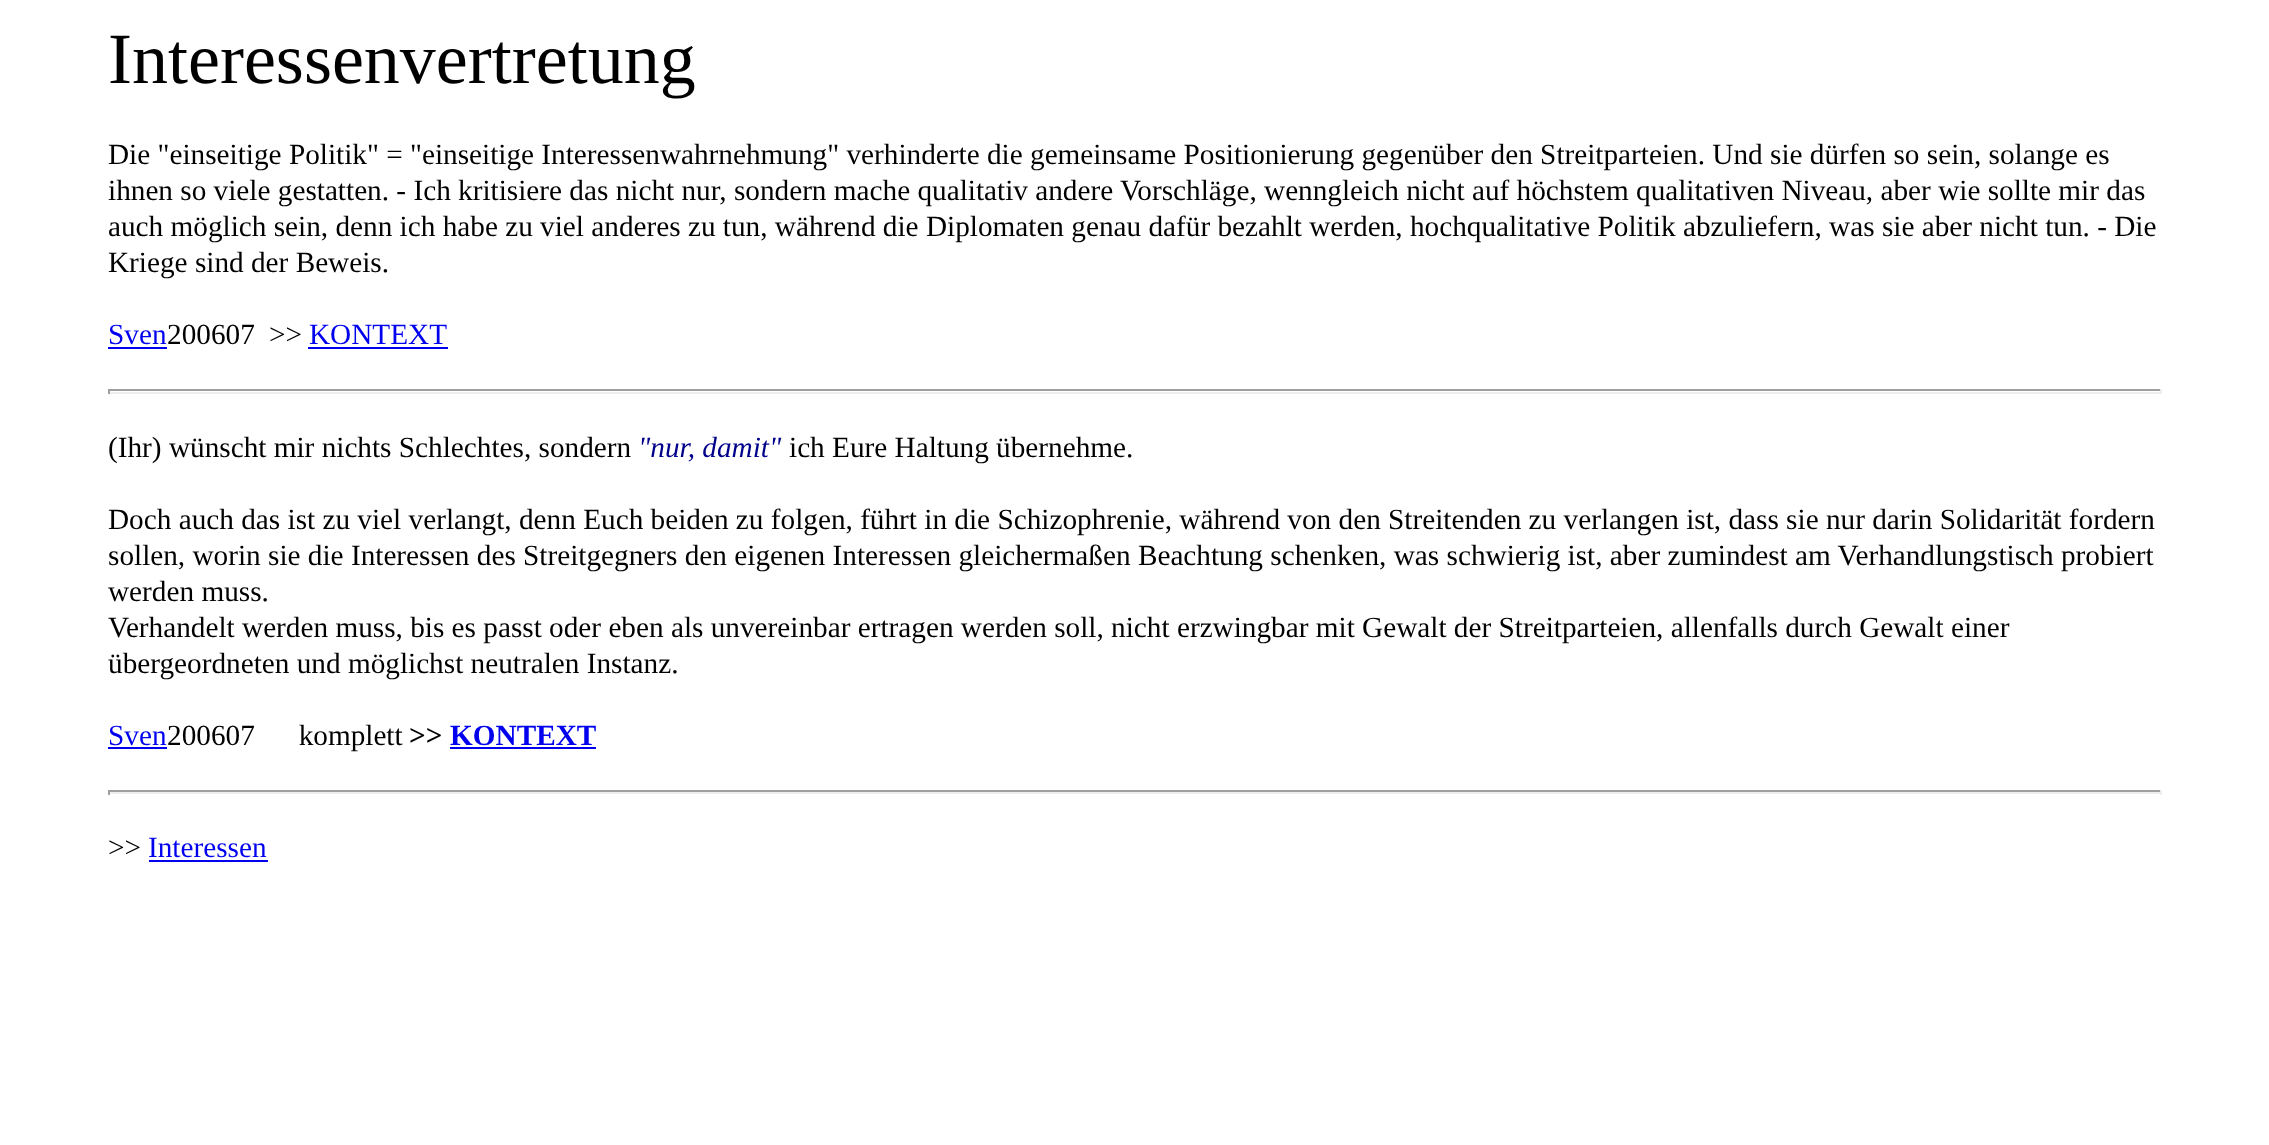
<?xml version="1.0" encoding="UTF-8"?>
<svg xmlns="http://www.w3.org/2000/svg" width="2269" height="1145">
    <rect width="100%" height="100%" fill="#FFFFFF"/>
    <text x="108" y="83" font-family="Liberation Serif" font-size="72" fill="#000000">Interessenvertretung</text>
    <text font-family="Liberation Serif" font-size="29.25" fill="#000000">
        <tspan x="108" y="164">Die "einseitige Politik" = "einseitige Interessenwahrnehmung" verhinderte die gemeinsame Positionierung gegenüber den Streitparteien. Und sie dürfen so sein, solange es</tspan>
        <tspan x="108" y="200">ihnen so viele gestatten. - Ich kritisiere das nicht nur, sondern mache qualitativ andere Vorschläge, wenngleich nicht auf höchstem qualitativen Niveau, aber wie sollte mir das</tspan>
        <tspan x="108" y="236">auch möglich sein, denn ich habe zu viel anderes zu tun, während die Diplomaten genau dafür bezahlt werden, hochqualitative Politik abzuliefern, was sie aber nicht tun. - Die</tspan>
        <tspan x="108" y="272">Kriege sind der Beweis.</tspan>
    </text>
    <text x="108" y="344" font-family="Liberation Serif" font-size="29.25" fill="#0000EE">Sven</text>
    <rect x="108" y="347" width="59" height="2" fill="#0000EE"/>
    <text x="167" y="344" font-family="Liberation Serif" font-size="29.25" fill="#000000">200607</text>
    <text x="269" y="344" font-family="Liberation Serif" font-size="29.25" fill="#000000">&gt;&gt;</text>
    <text x="309" y="344" font-family="Liberation Serif" font-size="29.25" fill="#0000EE">KONTEXT</text>
    <rect x="308" y="347" width="140" height="2" fill="#0000EE"/>
    <rect x="108" y="389" width="2054" height="2" fill="#9F9F9F"/>
    <rect x="2160" y="389" width="2" height="5" fill="#EEEEEE"/>
    <rect x="108" y="392" width="2054" height="2" fill="#EEEEEE"/>
    <rect x="108" y="389" width="2" height="5" fill="#9F9F9F"/>
    <text x="108" y="457" font-family="Liberation Serif" font-size="29.25" fill="#000000">(Ihr) wünscht mir nichts Schlechtes, sondern</text>
    <text x="638" y="457" font-family="Liberation Serif" font-size="29.25" font-style="italic" fill="#00008B">"nur, damit"</text>
    <text x="789" y="457" font-family="Liberation Serif" font-size="29.25" fill="#000000">ich Eure Haltung übernehme.</text>
    <text font-family="Liberation Serif" font-size="29.25" fill="#000000">
        <tspan x="108" y="529">Doch auch das ist zu viel verlangt, denn Euch beiden zu folgen, führt in die Schizophrenie, während von den Streitenden zu verlangen ist, dass sie nur darin Solidarität fordern</tspan>
        <tspan x="108" y="565">sollen, worin sie die Interessen des Streitgegners den eigenen Interessen gleichermaßen Beachtung schenken, was schwierig ist, aber zumindest am Verhandlungstisch probiert</tspan>
        <tspan x="108" y="601">werden muss.</tspan>
        <tspan x="108" y="637">Verhandelt werden muss, bis es passt oder eben als unvereinbar ertragen werden soll, nicht erzwingbar mit Gewalt der Streitparteien, allenfalls durch Gewalt einer</tspan>
        <tspan x="108" y="673">übergeordneten und möglichst neutralen Instanz.</tspan>
    </text>
    <text x="108" y="745" font-family="Liberation Serif" font-size="29.25" fill="#0000EE">Sven</text>
    <text x="167" y="745" font-family="Liberation Serif" font-size="29.25" fill="#000000" xml:space="preserve">200607      komplett</text>
    <rect x="108" y="747" width="59" height="2" fill="#0000EE"/>
    <text x="409" y="745" font-family="Liberation Serif" font-size="29.25" font-weight="700" fill="#000000">&gt;&gt;</text>
    <text x="450" y="745" font-family="Liberation Serif" font-size="29.25" font-weight="700" fill="#0000EE">KONTEXT</text>
    <rect x="450" y="747" width="146" height="2" fill="#0000EE"/>
    <rect x="108" y="790" width="2054" height="2" fill="#9F9F9F"/>
    <rect x="2160" y="790" width="2" height="5" fill="#EEEEEE"/>
    <rect x="108" y="792" width="2054" height="2" fill="#EEEEEE"/>
    <rect x="108" y="790" width="2" height="5" fill="#9F9F9F"/>
    <text x="108" y="857" font-family="Liberation Serif" font-size="29.25" fill="#000000">&gt;&gt;</text>
    <text x="148" y="857" font-family="Liberation Serif" font-size="29.25" fill="#0000EE">Interessen</text>
    <rect x="149" y="860" width="119" height="2" fill="#0000EE"/>
</svg>
